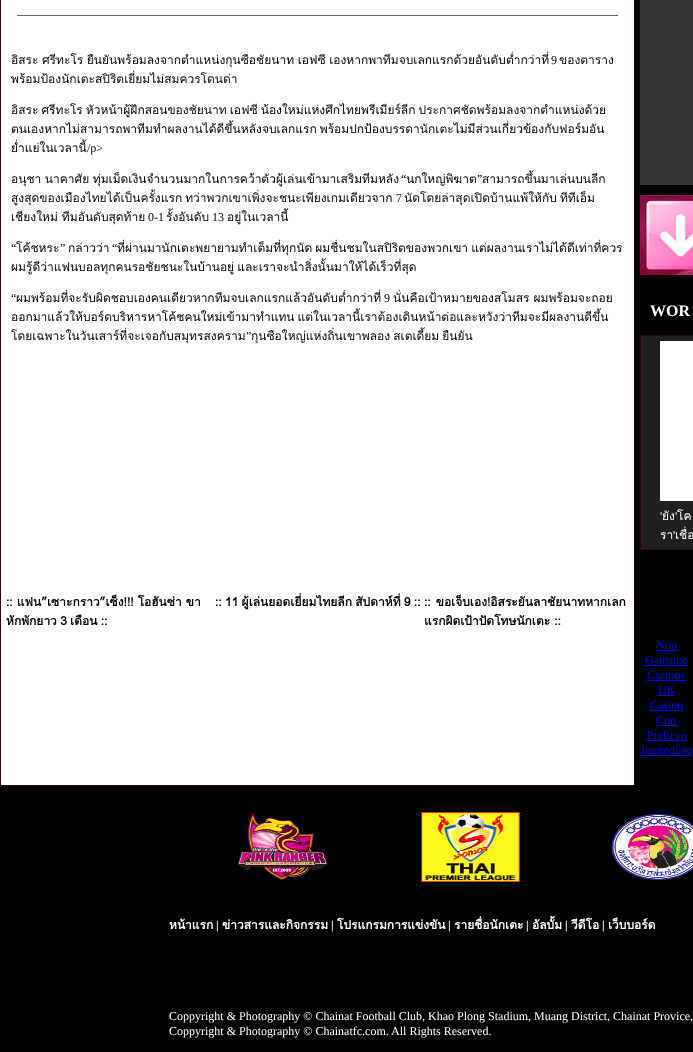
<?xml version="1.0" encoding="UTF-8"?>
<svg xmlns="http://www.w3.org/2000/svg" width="693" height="1052">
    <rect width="100%" height="100%" fill="#000000"/>
    <rect x="0" y="0" width="635" height="786" fill="#2F011C"/>
    <rect x="1" y="0" width="633" height="785" fill="#FFFFFF"/>
    <rect x="17" y="15" width="601" height="1" fill="#666666"/>
    <text x="11" y="64" word-spacing="-0.5" font-family="Loma" font-size="12" fill="#000000">อิสระ ศรีทะโร ยืนยันพร้อมลงจากตำแหน่งกุนซือชัยนาท เอฟซี เองหากพาทีมจบเลกแรกด้วยอันดับต่ำกว่าที่</text>
    <text x="551" y="64" font-family="Liberation Serif" font-size="12" fill="#000000">9</text>
    <text x="559" y="64" font-family="Loma" font-size="12" fill="#000000">ของตาราง</text>
    <text x="11" y="83" font-family="Loma" font-size="12" fill="#000000">พร้อมป้องนักเตะสปิริตเยี่ยมไม่สมควรโดนด่า</text>
    <text font-family="Loma" font-size="12" fill="#000000">
        <tspan x="11" y="114" word-spacing="-1">อิสระ ศรีทะโร หัวหน้าผู้ฝึกสอนของชัยนาท เอฟซี น้องใหม่แห่งศึกไทยพรีเมียร์ลีก ประกาศชัดพร้อมลงจากตำแหน่งด้วย</tspan>
        <tspan x="11" y="133" word-spacing="-1">ตนเองหากไม่สามารถพาทีมทำผลงานได้ดีขึ้นหลังจบเลกแรก พร้อมปกป้องบรรดานักเตะไม่มีส่วนเกี่ยวข้องกับฟอร์มอัน</tspan>
        <tspan x="11" y="152">ย่ำแย่ในเวลานี้</tspan>
    </text>
    <text x="87" y="152" font-family="Liberation Serif" font-size="12" fill="#000000">/p&gt;</text>
    <text x="11" y="183" word-spacing="-0.5" font-family="Loma" font-size="12" fill="#000000">อนุชา นาคาศัย ทุ่มเม็ดเงินจำนวนมากในการคว้าตัวผู้เล่นเข้ามาเสริมทีมหลัง</text>
    <text x="401" y="183" font-family="Liberation Serif" font-size="12" fill="#000000">“</text>
    <text x="406" y="183" font-family="Loma" font-size="12" fill="#000000">นกใหญ่พิฆาต</text>
    <text x="477" y="183" font-family="Liberation Serif" font-size="12" fill="#000000">”</text>
    <text x="482" y="183" font-family="Loma" font-size="12" fill="#000000">สามารถขึ้นมาเล่นบนลีก</text>
    <text x="11" y="202" word-spacing="-1" font-family="Loma" font-size="12" fill="#000000">สูงสุดของเมืองไทยได้เป็นครั้งแรก ทว่าพวกเขาเพิ่งจะชนะเพียงเกมเดียวจาก</text>
    <text x="396" y="202" font-family="Liberation Serif" font-size="12" fill="#000000">7</text>
    <text x="404" y="202" word-spacing="-1" font-family="Loma" font-size="12" fill="#000000">นัดโดยล่าสุดเปิดบ้านแพ้ให้กับ ทีทีเอ็ม</text>
    <text x="11" y="221" font-family="Loma" font-size="12" fill="#000000">เชียงใหม่ ทีมอันดับสุดท้าย</text>
    <text x="148" y="221" font-family="Liberation Serif" font-size="12" fill="#000000">0-1</text>
    <text x="166" y="221" font-family="Loma" font-size="12" fill="#000000">รั้งอันดับ</text>
    <text x="212" y="221" font-family="Liberation Serif" font-size="12" fill="#000000">13</text>
    <text x="227" y="221" font-family="Loma" font-size="12" fill="#000000">อยู่ในเวลานี้</text>
    <text x="11" y="252" font-family="Liberation Serif" font-size="12" fill="#000000">“</text>
    <text x="16" y="252" font-family="Loma" font-size="12" fill="#000000">โค้ชหระ</text>
    <text x="60" y="252" font-family="Liberation Serif" font-size="12" fill="#000000">”</text>
    <text x="68" y="252" font-family="Loma" font-size="12" fill="#000000">กล่าวว่า</text>
    <text x="112" y="252" font-family="Liberation Serif" font-size="12" fill="#000000">“</text>
    <text x="117" y="252" word-spacing="-1" font-family="Loma" font-size="12" fill="#000000">ที่ผ่านมานักเตะพยายามทำเต็มที่ทุกนัด ผมชื่นชมในสปิริตของพวกเขา แต่ผลงานเราไม่ได้ดีเท่าที่ควร</text>
    <text x="11" y="271" word-spacing="-1" font-family="Loma" font-size="12" fill="#000000">ผมรู้ดีว่าแฟนบอลทุกคนรอชัยชนะในบ้านอยู่ และเราจะนำสิ่งนั้นมาให้ได้เร็วที่สุด</text>
    <text x="11" y="302" font-family="Liberation Serif" font-size="12" fill="#000000">“</text>
    <text x="16" y="302" font-family="Loma" font-size="12" fill="#000000">ผมพร้อมที่จะรับผิดชอบเองคนเดียวหากทีมจบเลกแรกแล้วอันดับต่ำกว่าที่</text>
    <text x="384" y="302" font-family="Liberation Serif" font-size="12" fill="#000000">9</text>
    <text x="393" y="302" font-family="Loma" font-size="12" fill="#000000">นั่นคือเป้าหมายของสโมสร ผมพร้อมจะถอย</text>
    <text font-family="Loma" font-size="12" fill="#000000">
        <tspan x="11" y="321" word-spacing="-1">ออกมาแล้วให้บอร์ดบริหารหาโค้ชคนใหม่เข้ามาทำแทน แต่ในเวลานี้เราต้องเดินหน้าต่อและหวังว่าทีมจะมีผลงานดีขึ้น</tspan>
        <tspan x="11" y="340">โดยเฉพาะในวันเสาร์ที่จะเจอกับสมุทรสงคราม</tspan>
    </text>
    <text x="246" y="340" font-family="Liberation Serif" font-size="12" fill="#000000">”</text>
    <text x="251" y="340" word-spacing="-1" font-family="Loma" font-size="12" fill="#000000">กุนซือใหญ่แห่งถิ่นเขาพลอง สเตเดี้ยม ยืนยัน</text>
    <text font-family="Loma" font-size="12" font-weight="700" fill="#000000">
        <tspan x="6" y="606">:: แฟน”เซาะกราว”เซ็ง!!! โอฮันซ่า ขา</tspan>
        <tspan x="6" y="625" word-spacing="-0.75">หักพักยาว 3 เดือน ::</tspan>
    </text>
    <text x="215" y="606" word-spacing="-0.75" font-family="Loma" font-size="12" font-weight="700" fill="#000000">:: 11 ผู้เล่นยอดเยี่ยมไทยลีก สัปดาห์ที่ 9 ::</text>
    <text font-family="Loma" font-size="12" font-weight="700" fill="#000000">
        <tspan x="424" y="606" word-spacing="1">:: ขอเจ็บเอง!อิสระยันลาชัยนาทหากเลก</tspan>
        <tspan x="424" y="625">แรกผิดเป้าปัดโทษนักเตะ ::</tspan>
    </text>
    <rect x="640" y="0" width="53" height="185" fill="#333333"/>
    <image x="640" y="195" width="53" height="80" href="img_01.png"/>
    <text x="650" y="316" font-family="Liberation Serif" font-size="16" font-weight="700" fill="#FFFFFF">WOR</text>
    <rect x="640" y="335" width="53" height="215" fill="#2F011C"/>
    <rect x="641" y="336" width="52" height="213" fill="#202020"/>
    <rect x="660" y="341" width="33" height="160" fill="#FFFFFF"/>
    <text x="660" y="520" font-family="Liberation Serif" font-size="12" fill="#FFFFFF">'</text>
    <text x="662" y="520" font-family="Loma" font-size="12" fill="#FFFFFF">ยัง</text>
    <text x="677" y="520" word-spacing="-1" font-family="Loma" font-size="12" fill="#FFFFFF">โค</text>
    <text x="675" y="520" font-family="Liberation Serif" font-size="12" fill="#FFFFFF">'</text>
    <text x="673" y="539" font-family="Liberation Serif" font-size="12" fill="#FFFFFF">'</text>
    <text x="675" y="539" font-family="Loma" font-size="12" fill="#FFFFFF">เชื่อ</text>
    <text x="660" y="539" font-family="Loma" font-size="12" fill="#FFFFFF">รา</text>
    <text x="656" y="649" font-family="Liberation Serif" font-size="12" fill="#0000EE">Non</text>
    <rect x="656" y="650" width="21" height="1" fill="#0000EE"/>
    <rect x="645" y="665" width="43" height="1" fill="#0000EE"/>
    <text x="645" y="664" font-family="Liberation Serif" font-size="12" fill="#0000EE">Gamstop</text>
    <text x="647" y="679" font-family="Liberation Serif" font-size="12" fill="#0000EE">Casinos</text>
    <rect x="647" y="680" width="39" height="1" fill="#0000EE"/>
    <text x="658" y="694" font-family="Liberation Serif" font-size="12" fill="#0000EE">UK</text>
    <rect x="658" y="695" width="17" height="1" fill="#0000EE"/>
    <text x="650" y="709" font-family="Liberation Serif" font-size="12" fill="#0000EE">Casino</text>
    <rect x="650" y="710" width="33" height="1" fill="#0000EE"/>
    <text x="656" y="724" font-family="Liberation Serif" font-size="12" fill="#0000EE">Con</text>
    <rect x="656" y="725" width="21" height="1" fill="#0000EE"/>
    <text x="647" y="739" font-family="Liberation Serif" font-size="12" fill="#0000EE">Prelievo</text>
    <rect x="647" y="740" width="40" height="1" fill="#0000EE"/>
    <text x="641" y="754" font-family="Liberation Serif" font-size="12" fill="#0000EE">Immediato</text>
    <rect x="641" y="755" width="51" height="1" fill="#0000EE"/>
    <image x="237" y="812" width="92" height="68" href="img_02.png"/>
    <image x="421" y="812" width="99" height="70" href="img_03.png"/>
    <image x="611" y="814" width="82" height="66" href="img_04.png"/>
    <text x="169" y="929" font-family="Loma" font-size="12" font-weight="700" fill="#FFFFFF">หน้าแรก</text>
    <text x="216" y="929" font-family="Liberation Serif" font-size="12" font-weight="700" fill="#FFFFFF">|</text>
    <text x="222" y="929" font-family="Loma" font-size="12" font-weight="700" fill="#FFFFFF">ข่าวสารและกิจกรรม</text>
    <text x="331" y="929" font-family="Liberation Serif" font-size="12" font-weight="700" fill="#FFFFFF">|</text>
    <text x="337" y="929" font-family="Loma" font-size="12" font-weight="700" fill="#FFFFFF">โปรแกรมการแข่งขัน</text>
    <text x="448" y="929" font-family="Liberation Serif" font-size="12" font-weight="700" fill="#FFFFFF">|</text>
    <text x="454" y="929" font-family="Loma" font-size="12" font-weight="700" fill="#FFFFFF">รายชื่อนักเตะ</text>
    <text x="526" y="929" font-family="Liberation Serif" font-size="12" font-weight="700" fill="#FFFFFF">|</text>
    <text x="532" y="929" font-family="Loma" font-size="12" font-weight="700" fill="#FFFFFF">อัลบั้ม</text>
    <text x="565" y="929" font-family="Liberation Serif" font-size="12" font-weight="700" fill="#FFFFFF">|</text>
    <text x="571" y="929" font-family="Loma" font-size="12" font-weight="700" fill="#FFFFFF">วีดีโอ</text>
    <text x="608" y="929" font-family="Loma" font-size="12" font-weight="700" fill="#FFFFFF">เว็บบอร์ด</text>
    <text x="602" y="929" font-family="Liberation Serif" font-size="12" font-weight="700" fill="#FFFFFF">|</text>
    <text font-family="Liberation Serif" font-size="12" fill="#FFFFFF">
        <tspan x="169" y="1020">Coppyright &amp; Photography © Chainat Football Club, Khao Plong Stadium, Muang District, Chainat Provice,</tspan>
        <tspan x="169" y="1035">Coppyright &amp; Photography © Chainatfc.com. All Rights Reserved.</tspan>
    </text>
</svg>
